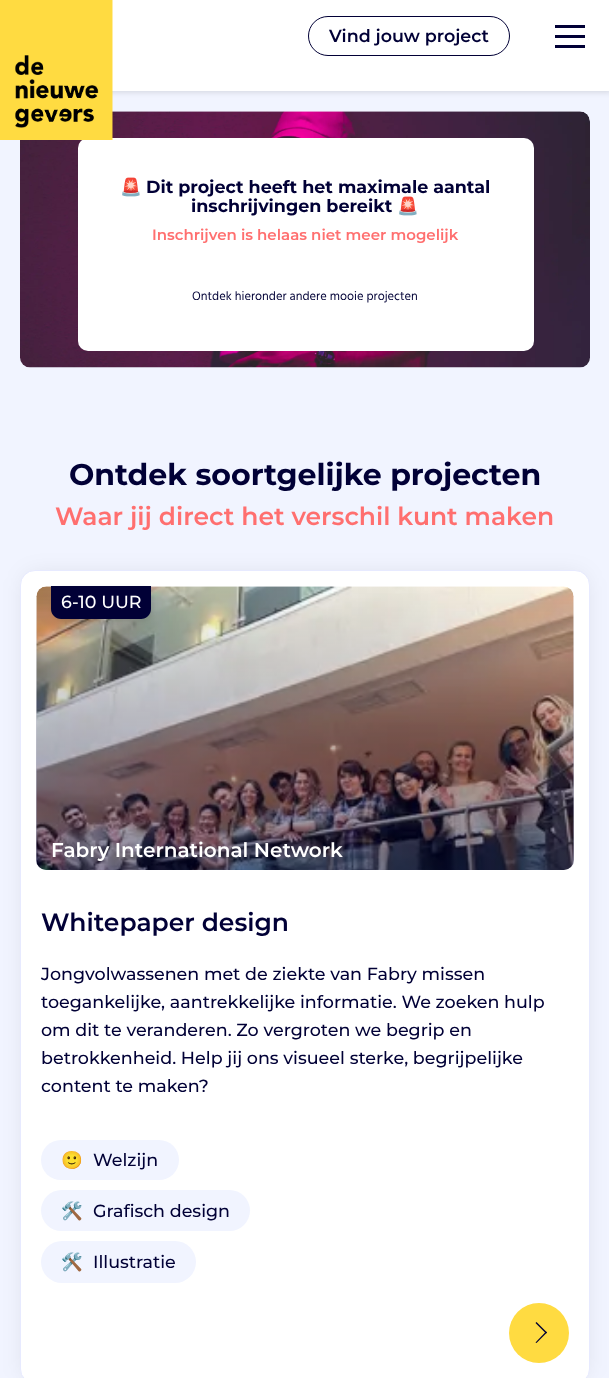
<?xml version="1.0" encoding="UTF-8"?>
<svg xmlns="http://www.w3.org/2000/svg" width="609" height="1378">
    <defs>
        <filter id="blur1" x="-50%" y="-200%" width="200%" height="500%"><feGaussianBlur stdDeviation="2.5"/></filter>
        <filter id="blur2" x="-50%" y="-200%" width="200%" height="500%"><feGaussianBlur stdDeviation="12.5"/></filter>
        <linearGradient id="g1" gradientUnits="userSpaceOnUse" x1="305" y1="586" x2="305" y2="1211"><stop offset="0" stop-color="#010036" stop-opacity="0"/><stop offset="1" stop-color="#010036"/></linearGradient>
    </defs>
    <rect width="100%" height="100%" fill="#F1F4FF"/>
    <rect x="1" y="1" width="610" height="92" fill="#000000" fill-opacity="0.1" filter="url(#blur1)"/>
    <rect x="112" y="0" width="497" height="91" fill="#FFFFFF"/>
    <image x="20" y="111" width="570" height="257" href="img_02.png"/>
    <rect x="78" y="138" width="456" height="213" rx="10" fill="#FFFFFF"/>
    <image x="0" y="0" width="113" height="140" href="img_01.png"/>
    <rect x="308.5" y="16.5" width="201" height="39" rx="19.5" fill="none" stroke="#010036"/>
    <text x="329" y="42" font-family="Montserrat" font-size="17.5" font-weight="600" fill="#010036">Vind jouw project</text>
    <rect x="555" y="35" width="30" height="3" fill="#010036"/>
    <rect x="555" y="25" width="30" height="3" fill="#010036"/>
    <rect x="555" y="45" width="30" height="3" fill="#010036"/>
    <text x="120" y="193" font-family="Noto Color Emoji" font-size="17.5" font-weight="700" fill="#010036">🚨</text>
    <text x="146" y="193" font-family="Montserrat" font-size="17.5" font-weight="700" fill="#010036">Dit project heeft het maximale aantal</text>
    <text x="191" y="212" font-family="Montserrat" font-size="17.5" font-weight="700" fill="#010036">inschrijvingen bereikt</text>
    <text x="397" y="212" font-family="Noto Color Emoji" font-size="17.5" font-weight="700" fill="#010036">🚨</text>
    <text x="152" y="240" font-family="Montserrat" font-size="15" font-weight="600" fill="#FF6F6F">Inschrijven is helaas niet meer mogelijk</text>
    <text x="192" y="300" font-family="Hind" font-size="12.5" fill="#010036">Ontdek hieronder andere mooie projecten</text>
    <text x="69" y="485" font-family="Montserrat" font-size="30" font-weight="700" fill="#010036">Ontdek soortgelijke projecten</text>
    <text x="55" y="525" font-family="Montserrat" font-size="25" font-weight="600" fill="#FF6F6F">Waar jij direct het verschil kunt maken</text>
    <rect x="26" y="576" width="558" height="802" rx="9" fill="#010036" fill-opacity="0.1" filter="url(#blur2)"/>
    <rect x="20.5" y="570.5" width="569" height="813" rx="14.5" fill="#FFFFFF" stroke="#E7EAFF"/>
    <image x="36" y="586" width="538" height="284" href="img_03.png"/>
    <rect x="36" y="586" width="538" height="284" rx="10" fill="url(#g1)"/>
    <rect x="53" y="588" width="100" height="32" rx="10" fill="#000000" fill-opacity="0.1" filter="url(#blur1)"/>
    <path d="M 51 586 H 151 V 609 C 151 614.5 146.5 619 141 619 H 61 C 55.5 619 51 614.5 51 609 Z" fill="#010036"/>
    <text x="61" y="608" font-family="Montserrat" font-size="17.5" font-weight="500" fill="#FFFFFF">6-10 UUR</text>
    <text x="51" y="857" font-family="Montserrat" font-size="20" font-weight="600" fill="#FFFFFF">Fabry International Network</text>
    <text x="41" y="931" font-family="Montserrat" font-size="25" font-weight="600" fill="#010036">Whitepaper design</text>
    <text font-family="Montserrat" font-size="17.5" font-weight="500" fill="#010036">
        <tspan x="41" y="980">Jongvolwassenen met de ziekte van Fabry missen</tspan>
        <tspan x="41" y="1008">toegankelijke, aantrekkelijke informatie. We zoeken hulp</tspan>
        <tspan x="41" y="1036">om dit te veranderen. Zo vergroten we begrip en</tspan>
        <tspan x="41" y="1064">betrokkenheid. Help jij ons visueel sterke, begrijpelijke</tspan>
        <tspan x="41" y="1092">content te maken?</tspan>
    </text>
    <rect x="41" y="1140" width="138" height="40" rx="20" fill="#F1F4FF"/>
    <text x="61" y="1166" font-family="Noto Color Emoji" font-size="17.5" fill="#010036">🙂</text>
    <text x="93" y="1166" font-family="Montserrat" font-size="17.5" font-weight="500" fill="#010036">Welzijn</text>
    <rect x="41" y="1190" width="209" height="41" rx="20.5" fill="#F1F4FF"/>
    <text x="61" y="1217" font-family="Noto Color Emoji" font-size="17.5" fill="#010036">🛠️</text>
    <text x="93" y="1217" font-family="Montserrat" font-size="17.5" font-weight="500" fill="#010036">Grafisch design</text>
    <rect x="41" y="1241" width="155" height="42" rx="21" fill="#F1F4FF"/>
    <text x="61" y="1268" font-family="Noto Color Emoji" font-size="17.5" fill="#010036">🛠️</text>
    <text x="93" y="1268" font-family="Montserrat" font-size="17.5" font-weight="500" fill="#010036">Illustratie</text>
    <circle cx="539" cy="1333" r="30" fill="#FFDB41"/>
    <path d="M 546 1333.5 L 535.5 1323 L 536.5 1322 L 547 1332.5 Z" fill="#010036"/>
    <path d="M 536.5 1343 L 535.5 1342.5 L 546 1331.5 L 547 1332.5 Z" fill="#010036"/>
</svg>
